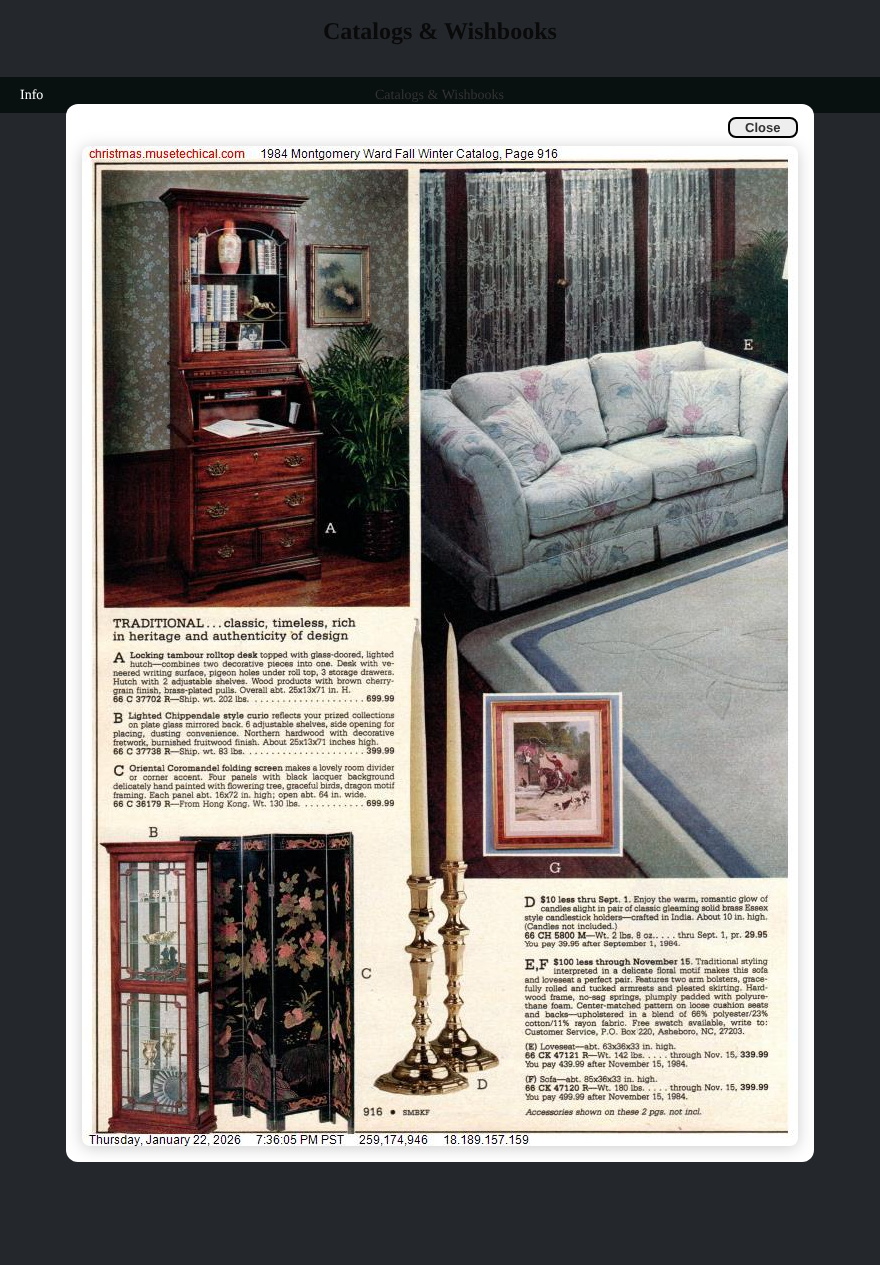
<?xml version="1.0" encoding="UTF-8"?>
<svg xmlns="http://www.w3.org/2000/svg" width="880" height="1265">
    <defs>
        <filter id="blur1" x="-50%" y="-200%" width="200%" height="500%"><feGaussianBlur stdDeviation="8"/></filter>
    </defs>
    <rect width="100%" height="100%" fill="#24282D"/>
    <rect x="0" y="77" width="880" height="36" fill="#091010"/>
    <text x="20" y="99" font-family="Liberation Serif" font-size="14" fill="#FFFFFF">Info</text>
    <text x="375" y="99" font-family="Liberation Serif" font-size="14" fill="#333333">Catalogs &amp; Wishbooks</text>
    <text x="323" y="39" font-family="Liberation Serif" font-size="24" font-weight="700" fill="#0A0A0A">Catalogs &amp; Wishbooks</text>
    <rect x="66" y="104" width="748" height="1058" rx="12" fill="#FFFFFF"/>
    <rect x="82" y="148" width="716" height="1000" rx="8" fill="#000000" fill-opacity="0.2" filter="url(#blur1)"/>
    <rect x="729" y="118" width="68" height="19" rx="7" fill="#EEEEEE" stroke="#000000" stroke-width="2"/>
    <text x="745" y="132" font-family="Liberation Sans" font-size="13" font-weight="700" fill="#333333">Close</text>
    <image x="82" y="146" width="716" height="1000" href="img_01.png"/>
</svg>
